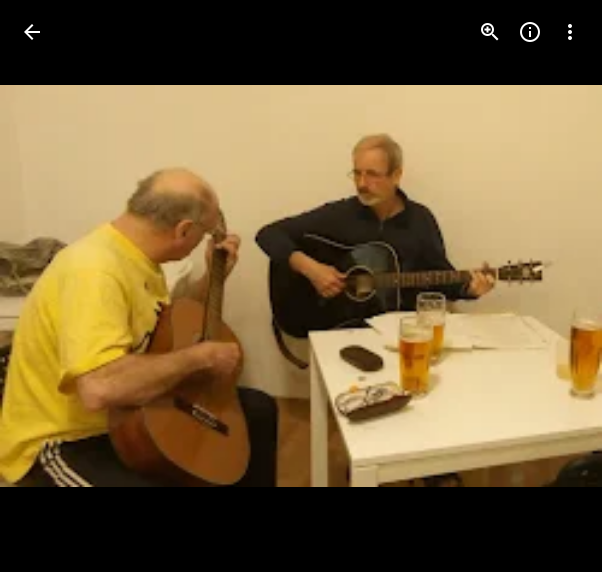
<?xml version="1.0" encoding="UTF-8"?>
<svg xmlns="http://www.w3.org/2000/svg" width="602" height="572">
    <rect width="100%" height="100%" fill="#000000"/>
    <image x="24" y="24" width="16" height="16" href="img_01.png"/>
    <image x="481" y="23" width="18" height="18" href="img_02.png"/>
    <image x="520" y="22" width="20" height="20" href="img_03.png"/>
    <image x="568" y="24" width="4" height="16" href="img_04.png"/>
    <image x="0" y="85" width="602" height="402" href="img_05.png"/>
</svg>
